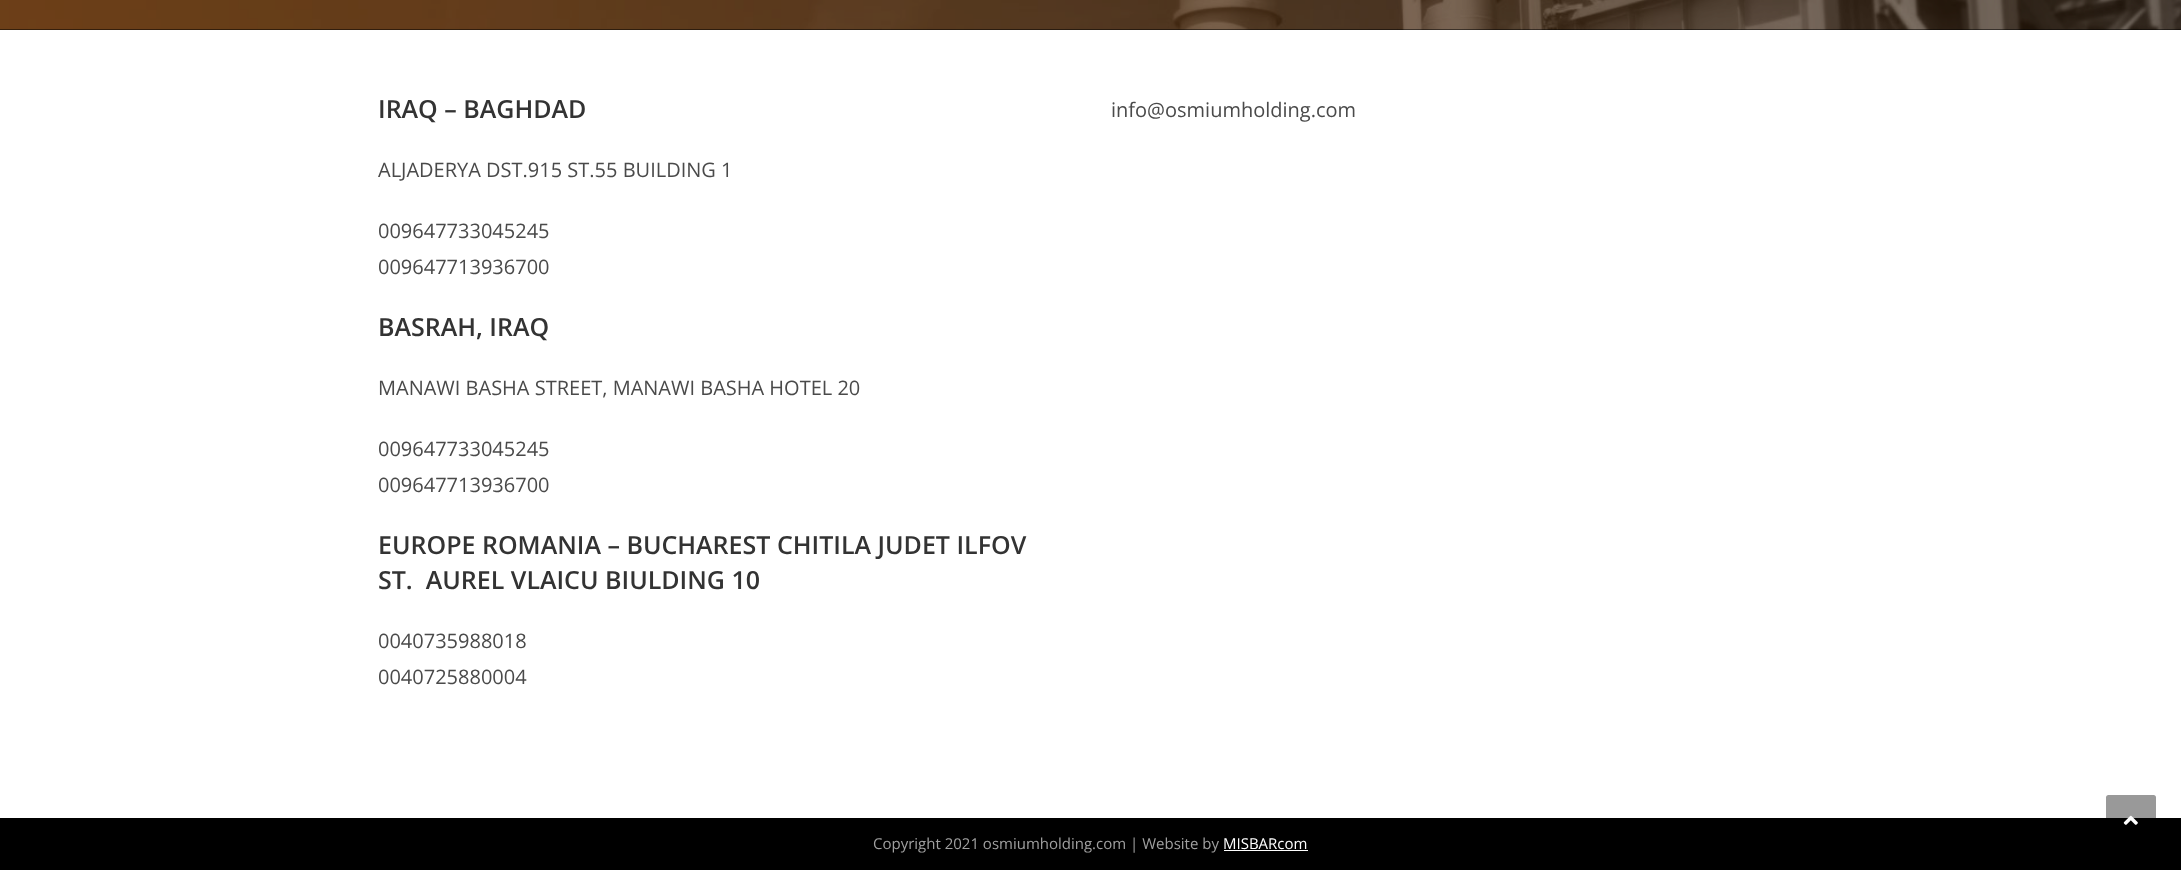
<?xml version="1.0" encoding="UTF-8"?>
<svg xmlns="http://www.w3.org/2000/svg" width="2181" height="870">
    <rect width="100%" height="100%" fill="#FFFFFF"/>
    <rect x="0" y="29" width="2181" height="1" fill="#000000"/>
    <image x="0" y="0" width="2181" height="30" href="img_01.png"/>
    <text x="378" y="118" font-family="Open Sans" font-size="25" font-weight="600" fill="#333333">IRAQ – BAGHDAD</text>
    <text x="378" y="177" font-family="Open Sans" font-size="20" fill="#4A4A4A">ALJADERYA DST.915 ST.55 BUILDING 1</text>
    <text font-family="Open Sans" font-size="20" fill="#4A4A4A">
        <tspan x="378" y="238">009647733045245</tspan>
        <tspan x="378" y="274">009647713936700</tspan>
    </text>
    <text x="378" y="336" font-family="Open Sans" font-size="25" font-weight="600" fill="#333333">BASRAH, IRAQ</text>
    <text x="378" y="395" font-family="Open Sans" font-size="20" fill="#4A4A4A">MANAWI BASHA STREET, MANAWI BASHA HOTEL 20</text>
    <text font-family="Open Sans" font-size="20" fill="#4A4A4A">
        <tspan x="378" y="456">009647733045245</tspan>
        <tspan x="378" y="492">009647713936700</tspan>
    </text>
    <text font-family="Open Sans" font-size="25" font-weight="600" fill="#333333" xml:space="preserve"><tspan x="378" y="554">EUROPE ROMANIA – BUCHAREST CHITILA JUDET ILFOV</tspan><tspan x="378" y="589">ST.  AUREL VLAICU BIULDING 10</tspan></text>
    <text font-family="Open Sans" font-size="20" fill="#4A4A4A">
        <tspan x="378" y="648">0040735988018</tspan>
        <tspan x="378" y="684">0040725880004</tspan>
    </text>
    <text x="1111" y="117" font-family="Open Sans" font-size="20" fill="#4A4A4A">info@osmiumholding.com</text>
    <rect x="0" y="818" width="2181" height="52" fill="#000000"/>
    <text x="873" y="849" font-family="Open Sans" font-size="15" fill="#A0A0A0">Copyright 2021 osmiumholding.com | Website by</text>
    <text x="1223" y="849" font-family="Open Sans" font-size="15" fill="#FFFFFF">MISBARcom</text>
    <rect x="1224" y="850" width="84" height="1" fill="#FFFFFF"/>
    <rect x="2106" y="795" width="50" height="50" rx="2.5" fill="#000000" fill-opacity="0.4"/>
    <image x="2123" y="815" width="15" height="10" href="img_02.png"/>
</svg>
